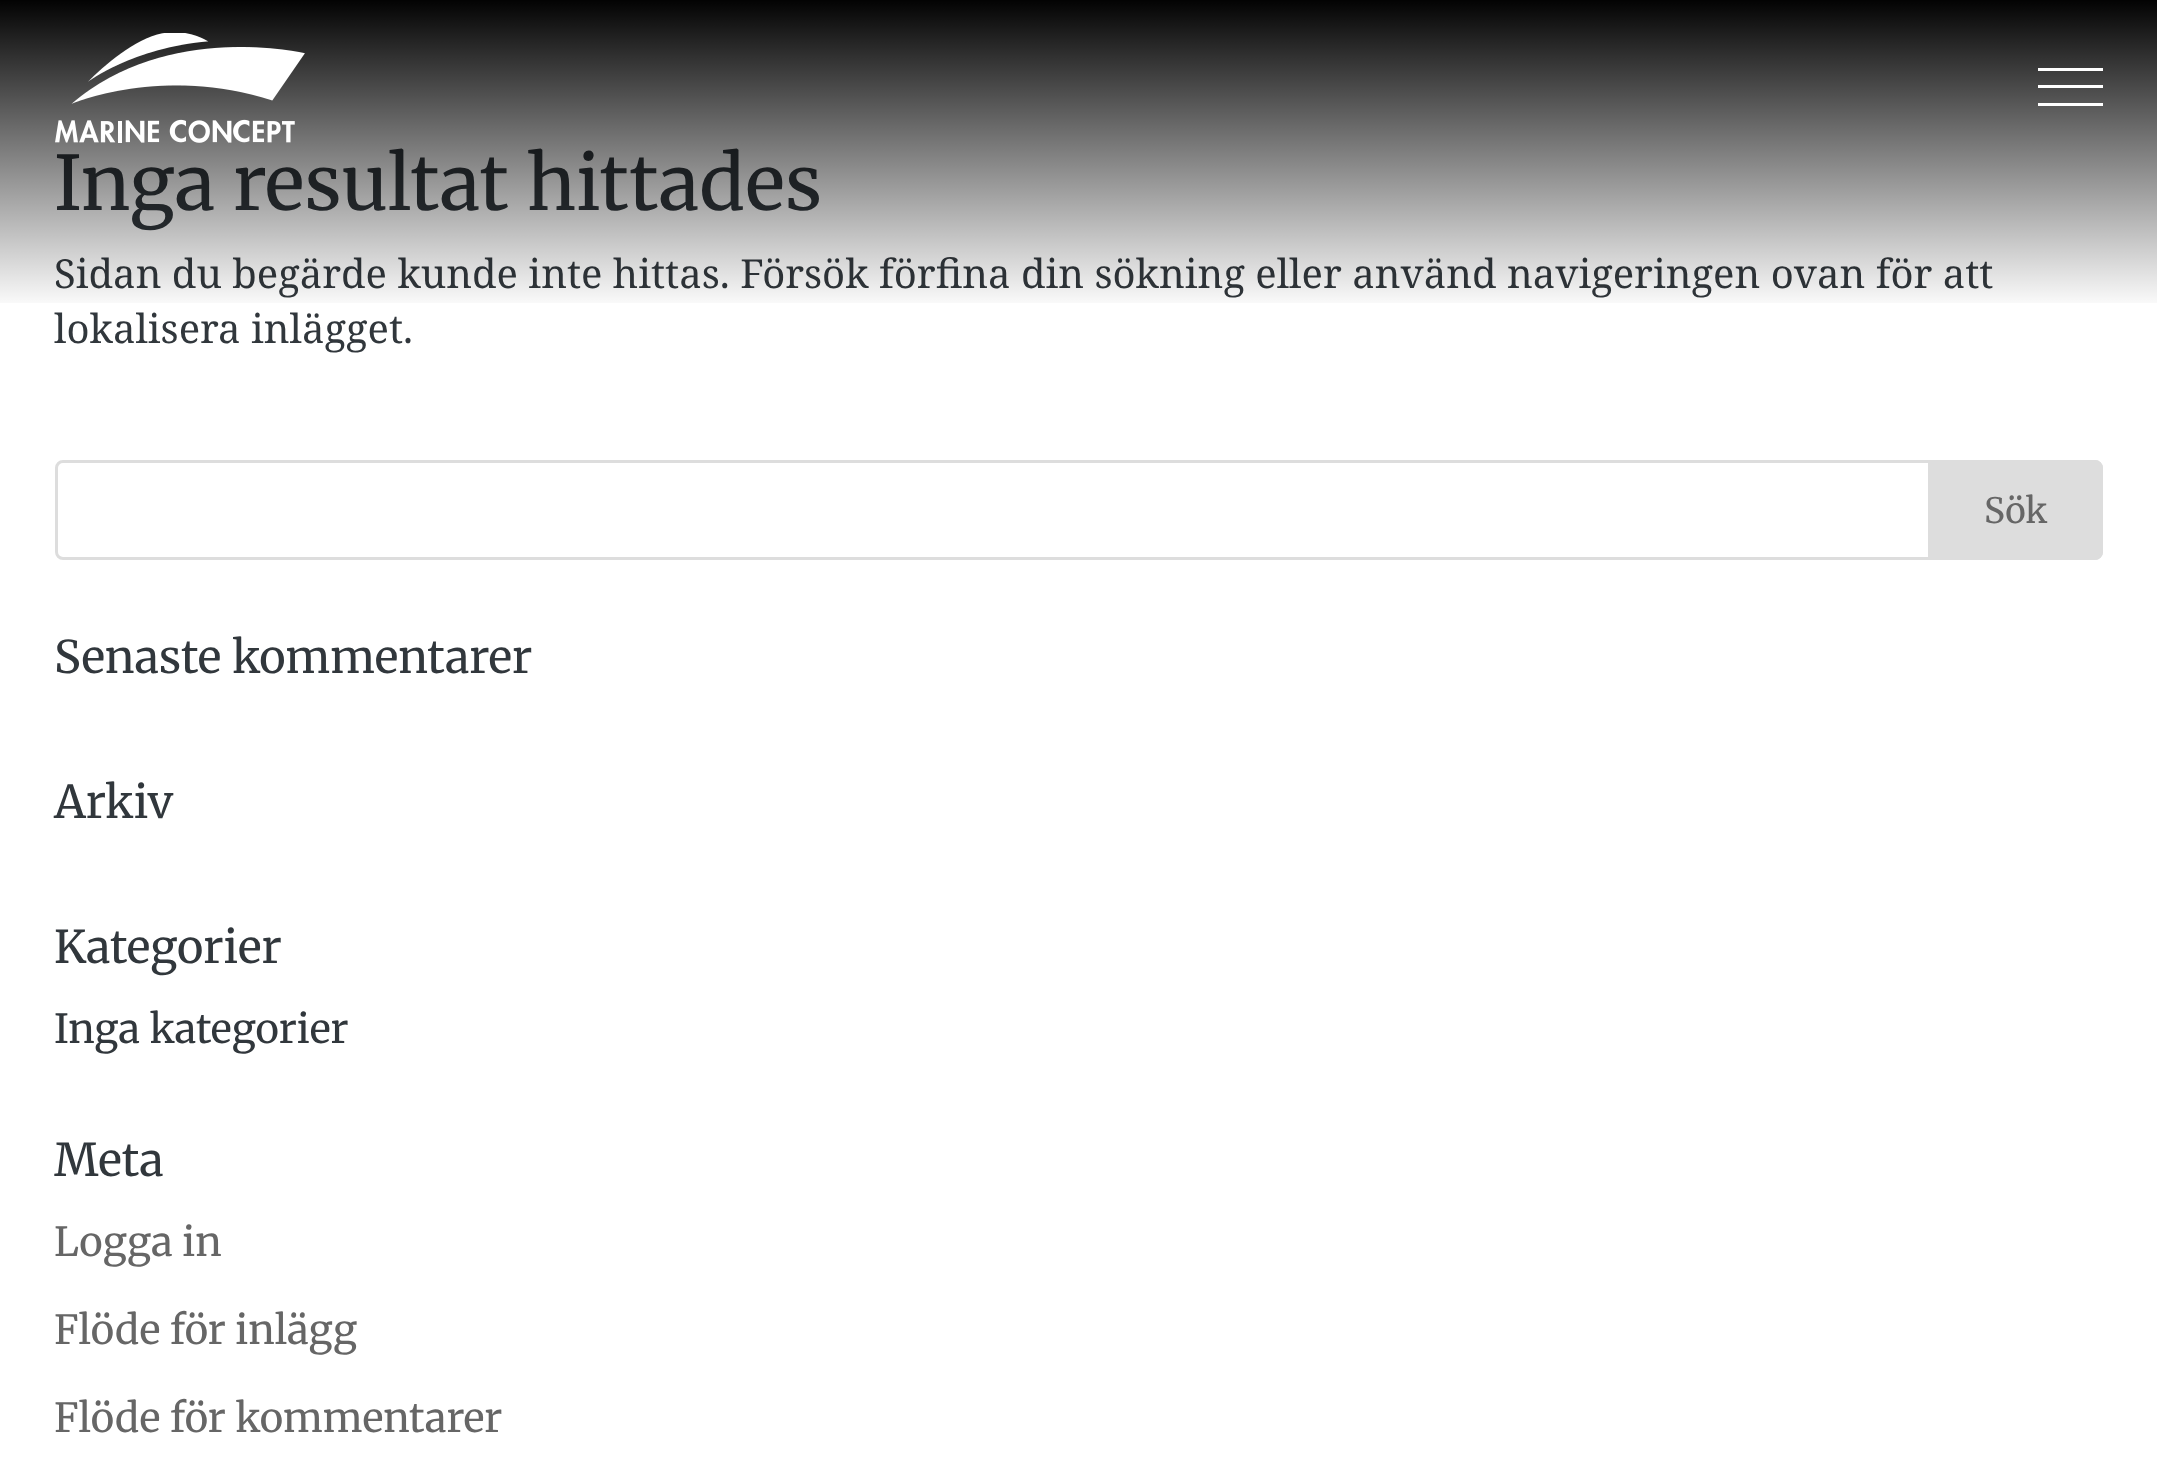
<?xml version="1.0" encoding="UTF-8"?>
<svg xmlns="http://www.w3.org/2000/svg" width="2157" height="1484">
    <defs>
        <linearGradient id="g1" gradientUnits="userSpaceOnUse" x1="1079" y1="-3.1" x2="1079" y2="310"><stop offset="0" stop-color="#000000"/><stop offset="1" stop-color="#000000" stop-opacity="0"/></linearGradient>
    </defs>
    <rect width="100%" height="100%" fill="#FFFFFF"/>
    <text x="54" y="210" font-family="Merriweather" font-size="75" fill="#31373C">Inga resultat hittades</text>
    <text x="54" y="288" font-family="Noto Serif" font-size="40" fill="#31373C">Sidan du begärde kunde inte hittas. Försök förfina din sökning eller använd navigeringen ovan för att</text>
    <rect x="0" y="0" width="2157" height="303" fill="url(#g1)"/>
    <image x="55" y="33" width="250" height="110" href="img_01.png"/>
    <rect x="2038" y="85" width="65" height="3" fill="#FFFFFF"/>
    <rect x="2038" y="68" width="65" height="3" fill="#FFFFFF"/>
    <rect x="2038" y="103" width="65" height="3" fill="#FFFFFF"/>
    <text x="54" y="343" font-family="Noto Serif" font-size="40" fill="#31373C">lokalisera inlägget.</text>
    <rect x="56.5" y="461.5" width="2045" height="97" rx="6.5" fill="none" stroke="#DDDDDD" stroke-width="3"/>
    <path d="M 1929.5 461.5 H 2095 C 2098.5 461.5 2101.5 464.5 2101.5 468 V 552 C 2101.5 555.5 2098.5 558.5 2095 558.5 H 1929.5 Z" fill="#DDDDDD" stroke="#DDDDDD" stroke-width="3"/>
    <text x="1984" y="523" font-family="Merriweather" font-size="35" fill="#666666">Sök</text>
    <text x="54" y="673" font-family="Merriweather" font-size="45" fill="#31373C">Senaste kommentarer</text>
    <text x="54" y="818" font-family="Merriweather" font-size="45" fill="#31373C">Arkiv</text>
    <text x="54" y="963" font-family="Merriweather" font-size="45" fill="#31373C">Kategorier</text>
    <text x="54" y="1043" font-family="Merriweather" font-size="40" fill="#31373C">Inga kategorier</text>
    <text x="54" y="1176" font-family="Merriweather" font-size="45" fill="#31373C">Meta</text>
    <text x="54" y="1256" font-family="Merriweather" font-size="40" fill="#666666">Logga in</text>
    <text x="54" y="1344" font-family="Merriweather" font-size="40" fill="#666666">Flöde för inlägg</text>
    <text x="54" y="1432" font-family="Merriweather" font-size="40" fill="#666666">Flöde för kommentarer</text>
</svg>
